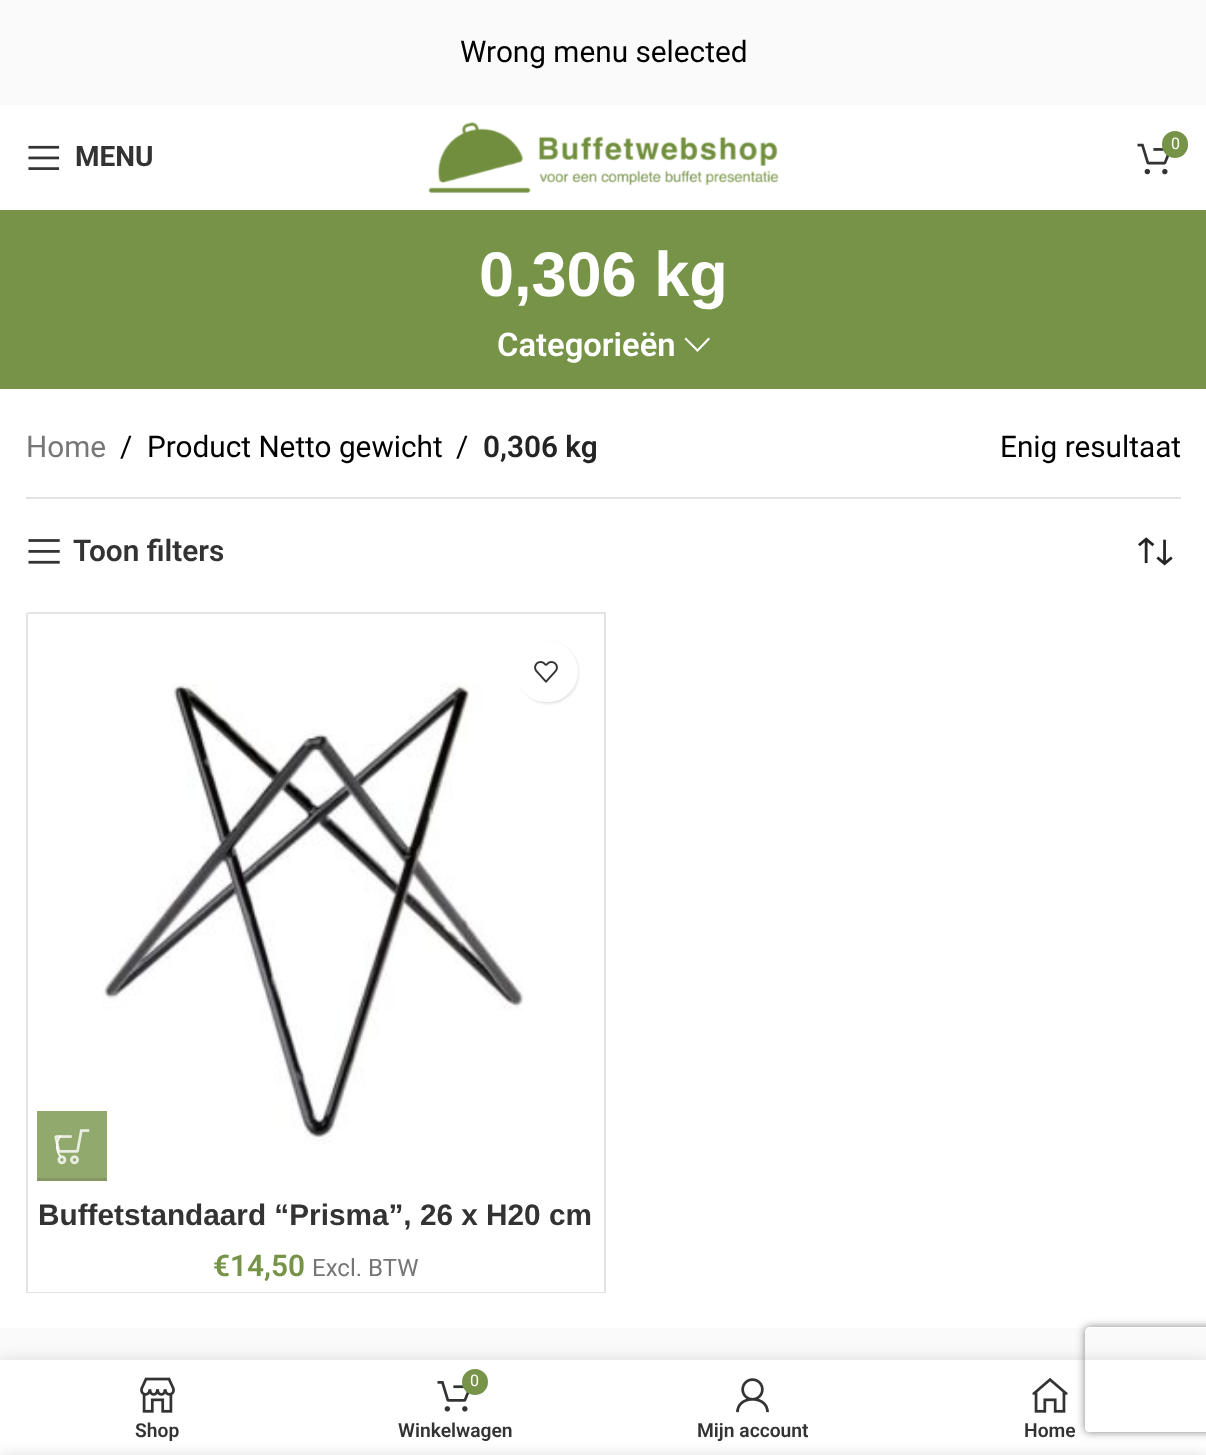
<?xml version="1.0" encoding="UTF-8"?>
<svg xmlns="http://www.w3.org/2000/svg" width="1206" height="1455">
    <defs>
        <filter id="blur1" x="-50%" y="-200%" width="200%" height="500%"><feGaussianBlur stdDeviation="1"/></filter>
        <filter id="blur2" x="-50%" y="-200%" width="200%" height="500%"><feGaussianBlur stdDeviation="8"/></filter>
        <clipPath id="clip1"><path d="M 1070 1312 H 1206 V 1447 H 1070 Z M 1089 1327 H 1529 C 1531 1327 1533 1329 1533 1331 V 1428 C 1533 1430 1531 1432 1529 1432 H 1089 C 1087 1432 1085 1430 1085 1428 V 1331 C 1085 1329 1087 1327 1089 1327 Z" clip-rule="evenodd"/></clipPath>
        <filter id="blur3" x="-50%" y="-200%" width="200%" height="500%"><feGaussianBlur stdDeviation="4.5"/></filter>
    </defs>
    <rect width="100%" height="100%" fill="#FFFFFF"/>
    <rect x="0" y="0" width="1206" height="105" fill="#FAFAFA"/>
    <text x="460" y="62" font-family="Roboto" font-size="29.75" fill="#000000">Wrong menu selected</text>
    <image x="428" y="121" width="351" height="72" href="img_01.png"/>
    <image x="1137" y="143" width="33" height="32" href="img_02.png"/>
    <rect x="1162" y="131" width="26" height="27" rx="13" fill="#779348"/>
    <text x="1171" y="149" font-family="Roboto" font-size="16" fill="#FFFFFF">0</text>
    <image x="28" y="145" width="32" height="25" href="img_03.png"/>
    <text x="75" y="166" font-family="Roboto" font-size="28" font-weight="700" fill="#333333">MENU</text>
    <rect x="0" y="210" width="1206" height="179" fill="#779348"/>
    <text x="479" y="296" font-family="Liberation Sans" font-size="63" font-weight="700" fill="#FFFFFF">0,306 kg</text>
    <text x="497" y="356" font-family="Roboto" font-size="32.75" font-weight="600" fill="#FFFFFF">Categorieën</text>
    <path d="M 708.5 337.5 L 697.5 349 L 686 337.5 L 684.5 339 L 697.5 352 L 710 339 Z" fill="#FFFFFF"/>
    <rect x="26" y="497" width="1155" height="2" fill="#E4E4E4"/>
    <text x="26" y="457" font-family="Roboto" font-size="29.75" fill="#767676">Home</text>
    <text x="120" y="457" font-family="Roboto" font-size="29.75" fill="#000000">/</text>
    <text x="147" y="457" font-family="Roboto" font-size="29.75" fill="#000000">Product Netto gewicht</text>
    <text x="456" y="457" font-family="Roboto" font-size="29.75" fill="#000000">/</text>
    <text x="483" y="457" font-family="Roboto" font-size="29.75" font-weight="600" fill="#242424">0,306 kg</text>
    <text x="1000" y="457" font-family="Roboto" font-size="29.75" fill="#000000">Enig resultaat</text>
    <image x="28" y="539" width="32" height="25" href="img_04.png"/>
    <text x="73" y="561" font-family="Roboto" font-size="29.75" font-weight="600" fill="#333333">Toon filters</text>
    <image x="1138" y="537" width="35" height="29" href="img_05.png"/>
    <rect x="26" y="613" width="2" height="680" fill="#E4E4E4"/>
    <path d="M 28 612 H 606 L 604 614 H 28 Z" fill="#E4E4E4"/>
    <path d="M 606 612 V 1293 L 604 1292 V 614 Z" fill="#000000" fill-opacity="0.11"/>
    <path d="M 606 1293 H 28 V 1292 H 604 Z" fill="#000000" fill-opacity="0.11"/>
    <image x="102" y="683" width="422" height="461" href="img_08.png"/>
    <rect x="518" y="642" width="61" height="62" rx="30.5" fill="#000000" fill-opacity="0.1" filter="url(#blur1)"/>
    <rect x="516" y="641" width="62" height="61" rx="30.5" fill="#FFFFFF"/>
    <image x="534" y="661" width="24" height="22" href="img_06.png"/>
    <rect x="37" y="1111" width="70" height="67" fill="#92A96D"/>
    <rect x="37" y="1178" width="70" height="3" fill="#849764"/>
    <image x="54" y="1129" width="36" height="36" href="img_07.png"/>
    <path d="M 61 1157 C 55.5 1151 55.5 1141.5 61 1135.5" fill="none" stroke="#FFFFFF" stroke-width="1.8"/>
    <text x="38" y="1225" font-family="Liberation Sans" font-size="29.75" font-weight="700" fill="#333333">Buffetstandaard “Prisma”, 26 x H20 cm</text>
    <text x="213" y="1276" font-family="Roboto" font-size="29.75" font-weight="600" fill="#779348">€14,50</text>
    <text x="312" y="1276" font-family="Roboto" font-size="24" fill="#767676">Excl. BTW</text>
    <rect x="0" y="1328" width="1206" height="32" fill="#FAFAFA"/>
    <rect x="0" y="1360" width="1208" height="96" fill="#000000" fill-opacity="0.12" filter="url(#blur2)"/>
    <rect x="0" y="1360" width="1206" height="95" fill="#FFFFFF"/>
    <image x="140" y="1377" width="35" height="36" href="img_09.png"/>
    <text x="135" y="1437" font-family="Roboto" font-size="19.25" font-weight="600" fill="#333333">Shop</text>
    <image x="437" y="1381" width="33" height="31" href="img_10.png"/>
    <circle cx="475" cy="1382" r="13" fill="#779348"/>
    <text x="470" y="1386" font-family="Roboto" font-size="16" fill="#FFFFFF">0</text>
    <text x="398" y="1437" font-family="Roboto" font-size="19.25" font-weight="600" fill="#333333">Winkelwagen</text>
    <image x="736" y="1378" width="33" height="35" href="img_11.png"/>
    <text x="697" y="1437" font-family="Roboto" font-size="19.25" font-weight="600" fill="#333333">Mijn account</text>
    <image x="1032" y="1377" width="36" height="36" href="img_12.png"/>
    <text x="1024" y="1437" font-family="Roboto" font-size="19.25" font-weight="600" fill="#333333">Home</text>
    <g clip-path="url(#clip1)">
        <rect x="1085" y="1327" width="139" height="105" rx="4" fill="#808080" filter="url(#blur3)"/>
    </g>
    <rect x="0" y="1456" width="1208" height="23" fill="#000000" fill-opacity="0.14" filter="url(#blur2)"/>
</svg>
